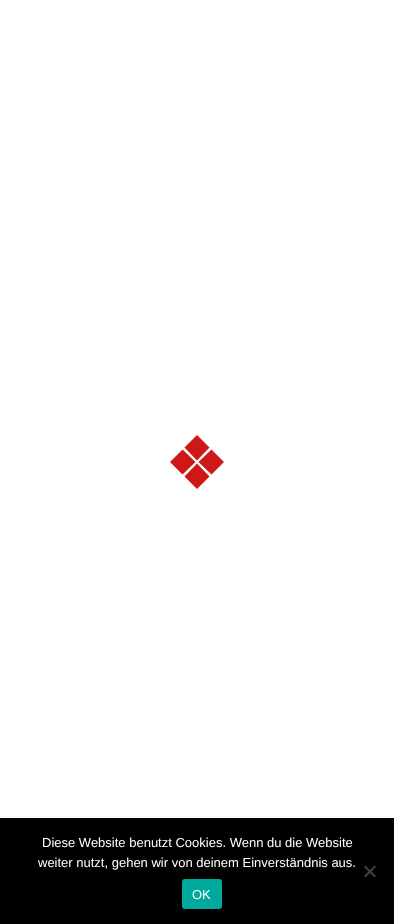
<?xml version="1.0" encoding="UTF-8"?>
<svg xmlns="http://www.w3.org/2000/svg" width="394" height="924">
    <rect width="100%" height="100%" fill="#FFFFFF"/>
    <path d="M 197 435 L 209.5 447.5 L 197 460.5 L 184.5 447.5 Z" fill="#CD1719"/>
    <path d="M 211.5 449.5 L 224 462 L 211.5 474.5 L 198.5 462 Z M 182.5 449.5 L 195.5 462 L 182.5 474.5 L 170 462 Z" fill="#CD1719"/>
    <path d="M 197 463.5 L 209.5 476.5 L 197 489 L 184.5 476.5 Z" fill="#CD1719"/>
    <rect x="0" y="818" width="394" height="106" fill="#000000"/>
    <text x="42" y="847" font-family="Liberation Sans" font-size="13" fill="#FFFFFF">Diese Website benutzt Cookies. Wenn du die Website</text>
    <text x="38" y="867" font-family="Liberation Sans" font-size="13" fill="#FFFFFF">weiter nutzt, gehen wir von deinem Einverständnis aus.</text>
    <path d="M 374.5 865.5 L 376 867 L 365.5 877.5 L 364 876 Z" fill="#404040"/>
    <path d="M 364 867 L 365.5 865.5 L 376 876 L 374.5 877.5 Z" fill="#404040"/>
    <rect x="182" y="879" width="40" height="30" rx="3" fill="#00A99D"/>
    <text x="192" y="899" font-family="Liberation Sans" font-size="13" fill="#FFFFFF">OK</text>
</svg>
